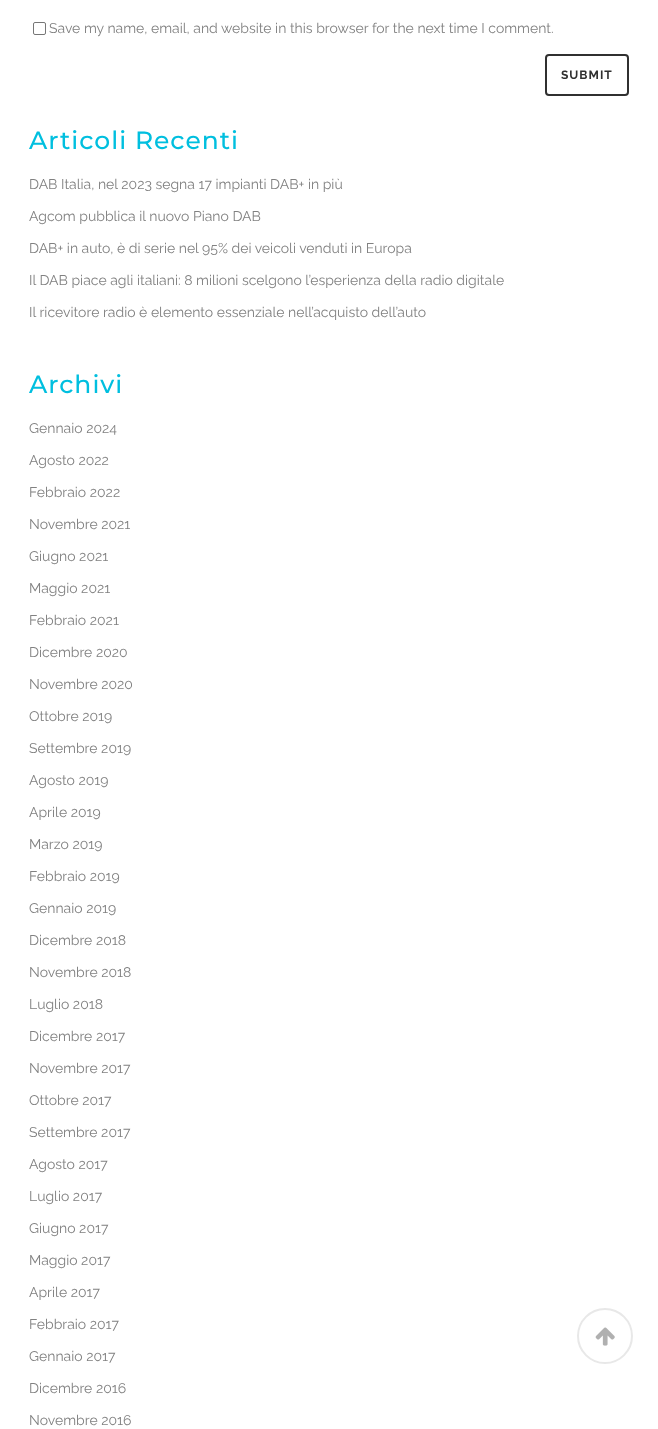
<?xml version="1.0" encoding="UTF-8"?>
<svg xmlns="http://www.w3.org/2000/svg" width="658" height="1429">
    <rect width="100%" height="100%" fill="#FFFFFF"/>
    <rect x="33.5" y="22.5" width="12" height="12" rx="1.5" fill="none" stroke="#767676"/>
    <text x="49" y="33" font-family="Raleway" font-size="14" fill="#818181">Save my name, email, and website in this browser for the next time I comment.</text>
    <rect x="546" y="55" width="82" height="40" rx="3" fill="none" stroke="#303030" stroke-width="2"/>
    <text x="561" y="79" font-family="Raleway" font-size="12" font-weight="700" letter-spacing="1" fill="#303030">SUBMIT</text>
    <text x="29" y="149" font-family="Montserrat" font-size="25" font-weight="500" letter-spacing="1" fill="#00BFDF">Articoli Recenti</text>
    <text x="29" y="189" font-family="Raleway" font-size="14" fill="#818181">DAB Italia, nel 2023 segna 17 impianti DAB+ in più</text>
    <text x="29" y="221" font-family="Raleway" font-size="14" fill="#818181">Agcom pubblica il nuovo Piano DAB</text>
    <text x="29" y="253" font-family="Raleway" font-size="14" fill="#818181">DAB+ in auto, è di serie nel 95% dei veicoli venduti in Europa</text>
    <text x="29" y="285" font-family="Raleway" font-size="14" fill="#818181">Il DAB piace agli italiani: 8 milioni scelgono l’esperienza della radio digitale</text>
    <text x="29" y="317" font-family="Raleway" font-size="14" fill="#818181">Il ricevitore radio è elemento essenziale nell’acquisto dell’auto</text>
    <text x="29" y="393" font-family="Montserrat" font-size="25" font-weight="500" letter-spacing="1" fill="#00BFDF">Archivi</text>
    <text x="29" y="433" font-family="Raleway" font-size="14" fill="#818181">Gennaio 2024</text>
    <text x="29" y="465" font-family="Raleway" font-size="14" fill="#818181">Agosto 2022</text>
    <text x="29" y="497" font-family="Raleway" font-size="14" fill="#818181">Febbraio 2022</text>
    <text x="29" y="529" font-family="Raleway" font-size="14" fill="#818181">Novembre 2021</text>
    <text x="29" y="561" font-family="Raleway" font-size="14" fill="#818181">Giugno 2021</text>
    <text x="29" y="593" font-family="Raleway" font-size="14" fill="#818181">Maggio 2021</text>
    <text x="29" y="625" font-family="Raleway" font-size="14" fill="#818181">Febbraio 2021</text>
    <text x="29" y="657" font-family="Raleway" font-size="14" fill="#818181">Dicembre 2020</text>
    <text x="29" y="689" font-family="Raleway" font-size="14" fill="#818181">Novembre 2020</text>
    <text x="29" y="721" font-family="Raleway" font-size="14" fill="#818181">Ottobre 2019</text>
    <text x="29" y="753" font-family="Raleway" font-size="14" fill="#818181">Settembre 2019</text>
    <text x="29" y="785" font-family="Raleway" font-size="14" fill="#818181">Agosto 2019</text>
    <text x="29" y="817" font-family="Raleway" font-size="14" fill="#818181">Aprile 2019</text>
    <text x="29" y="849" font-family="Raleway" font-size="14" fill="#818181">Marzo 2019</text>
    <text x="29" y="881" font-family="Raleway" font-size="14" fill="#818181">Febbraio 2019</text>
    <text x="29" y="913" font-family="Raleway" font-size="14" fill="#818181">Gennaio 2019</text>
    <text x="29" y="945" font-family="Raleway" font-size="14" fill="#818181">Dicembre 2018</text>
    <text x="29" y="977" font-family="Raleway" font-size="14" fill="#818181">Novembre 2018</text>
    <text x="29" y="1009" font-family="Raleway" font-size="14" fill="#818181">Luglio 2018</text>
    <text x="29" y="1041" font-family="Raleway" font-size="14" fill="#818181">Dicembre 2017</text>
    <text x="29" y="1073" font-family="Raleway" font-size="14" fill="#818181">Novembre 2017</text>
    <text x="29" y="1105" font-family="Raleway" font-size="14" fill="#818181">Ottobre 2017</text>
    <text x="29" y="1137" font-family="Raleway" font-size="14" fill="#818181">Settembre 2017</text>
    <text x="29" y="1169" font-family="Raleway" font-size="14" fill="#818181">Agosto 2017</text>
    <text x="29" y="1201" font-family="Raleway" font-size="14" fill="#818181">Luglio 2017</text>
    <text x="29" y="1233" font-family="Raleway" font-size="14" fill="#818181">Giugno 2017</text>
    <text x="29" y="1265" font-family="Raleway" font-size="14" fill="#818181">Maggio 2017</text>
    <text x="29" y="1297" font-family="Raleway" font-size="14" fill="#818181">Aprile 2017</text>
    <text x="29" y="1329" font-family="Raleway" font-size="14" fill="#818181">Febbraio 2017</text>
    <text x="29" y="1361" font-family="Raleway" font-size="14" fill="#818181">Gennaio 2017</text>
    <text x="29" y="1393" font-family="Raleway" font-size="14" fill="#818181">Dicembre 2016</text>
    <text x="29" y="1425" font-family="Raleway" font-size="14" fill="#818181">Novembre 2016</text>
    <circle cx="605" cy="1336" r="27" fill="none" stroke="#E8E8E8" stroke-width="2"/>
    <image x="595" y="1327" width="20" height="19" href="img_01.png"/>
</svg>
